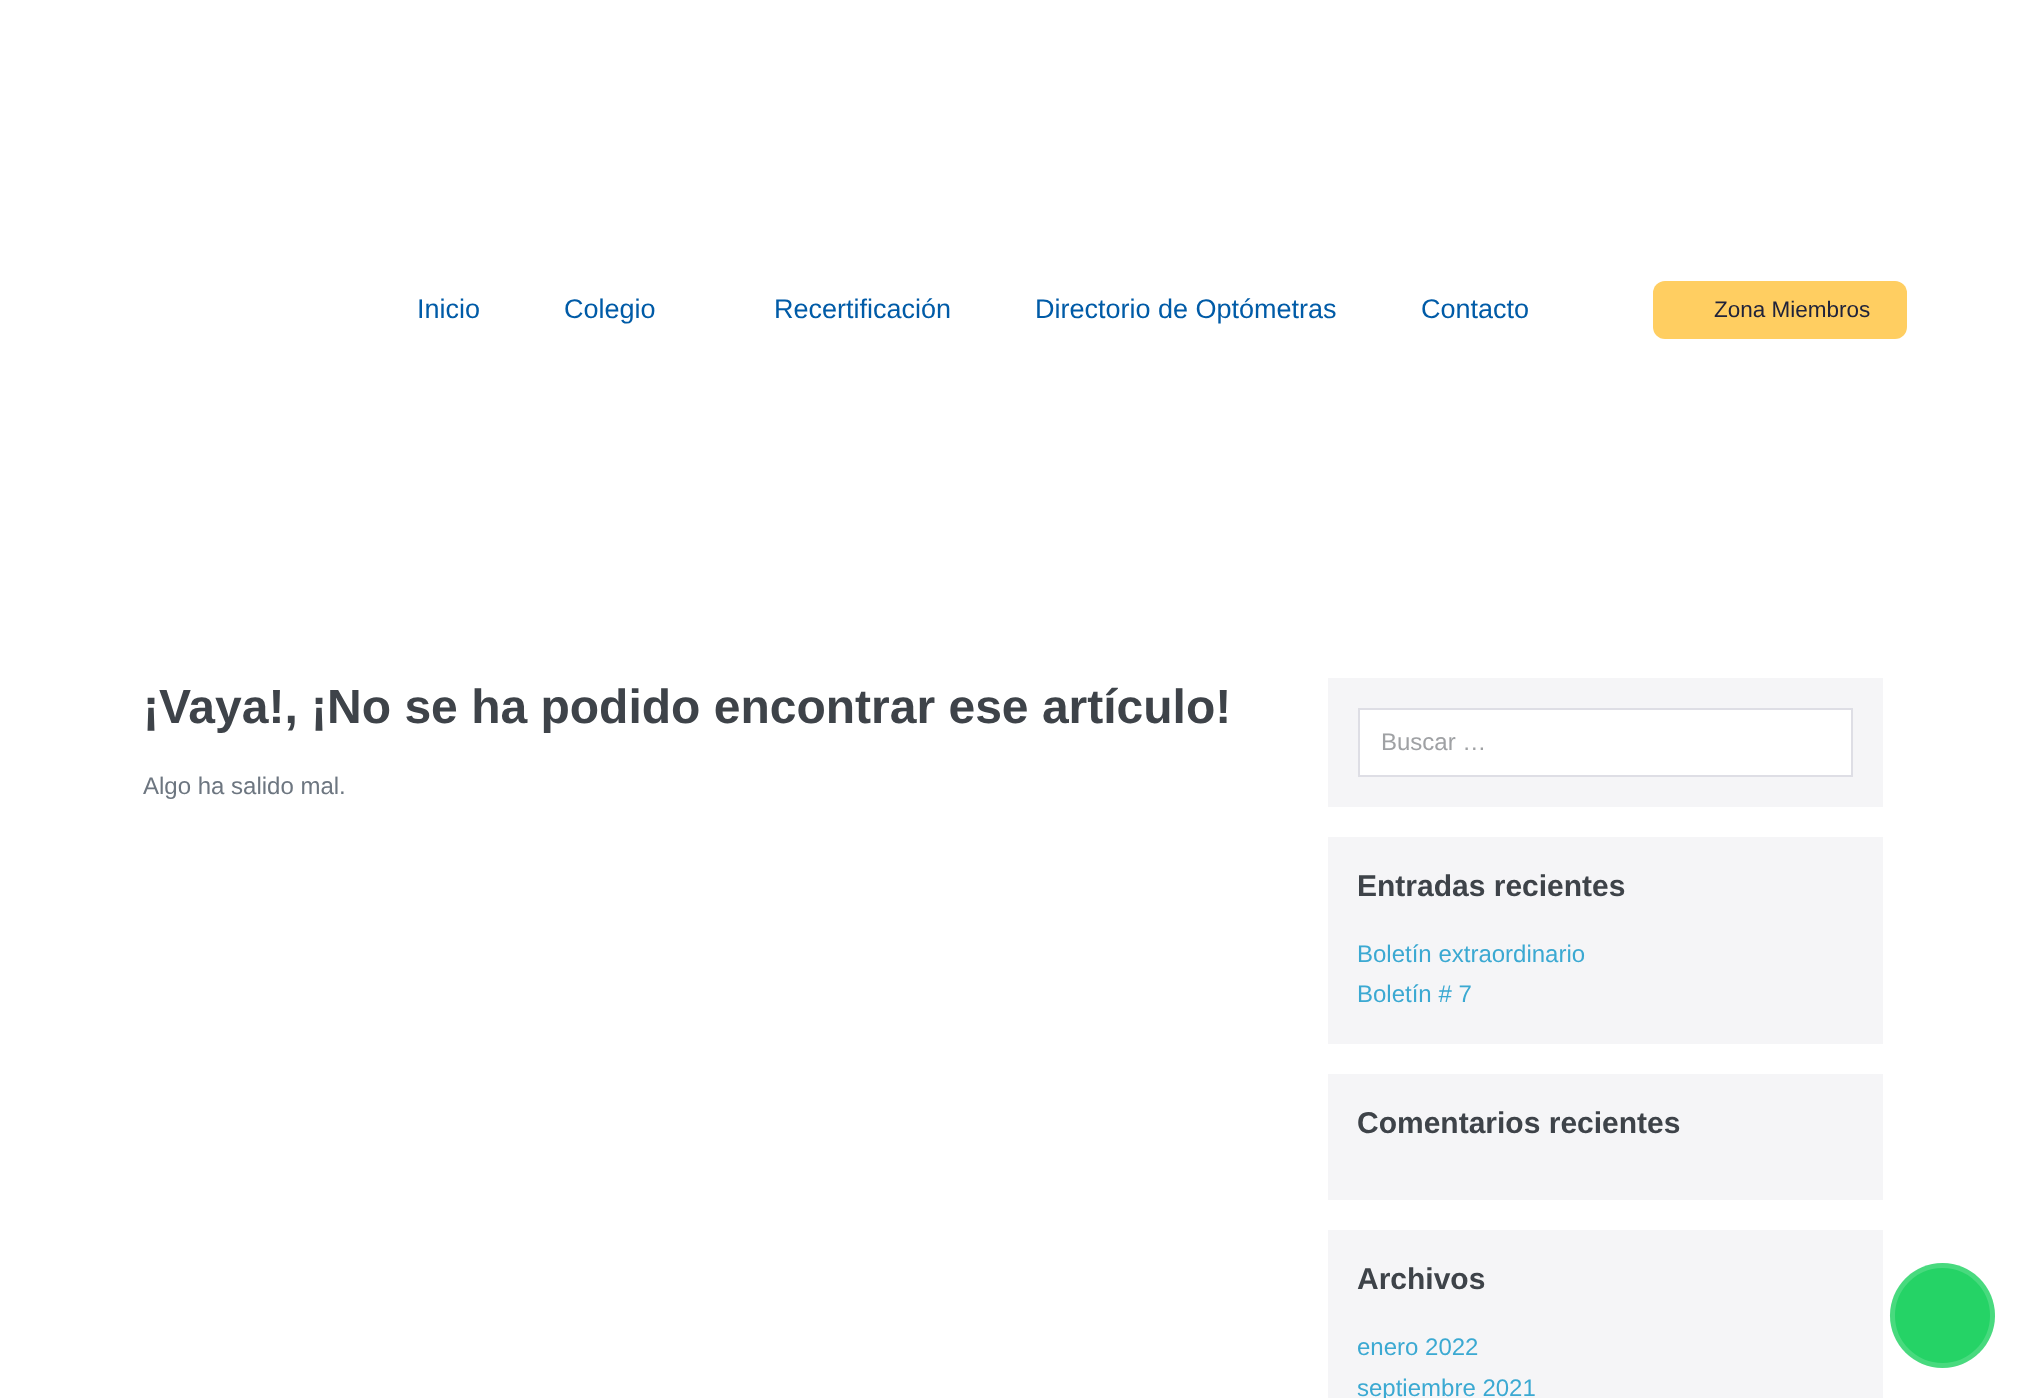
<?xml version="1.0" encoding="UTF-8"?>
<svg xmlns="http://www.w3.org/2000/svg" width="2024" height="1398">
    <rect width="100%" height="100%" fill="#FFFFFF"/>
    <text x="417" y="318" font-family="Liberation Sans" font-size="27" fill="#005BA7">Inicio</text>
    <text x="564" y="318" font-family="Liberation Sans" font-size="27" fill="#005BA7">Colegio</text>
    <text x="774" y="318" font-family="Liberation Sans" font-size="27" fill="#005BA7">Recertificación</text>
    <text x="1035" y="318" font-family="Liberation Sans" font-size="27" fill="#005BA7">Directorio de Optómetras</text>
    <text x="1421" y="318" font-family="Liberation Sans" font-size="27" fill="#005BA7">Contacto</text>
    <rect x="1653" y="281" width="254" height="58" rx="12" fill="#FFCE61"/>
    <text x="1714" y="317" font-family="Liberation Sans" font-size="22.5" fill="#20233A">Zona Miembros</text>
    <text x="143" y="723" font-family="Liberation Sans" font-size="48" font-weight="700" fill="#3E4349">¡Vaya!, ¡No se ha podido encontrar ese artículo!</text>
    <text x="143" y="794" font-family="Liberation Sans" font-size="24" fill="#6D7680">Algo ha salido mal.</text>
    <rect x="1328" y="678" width="555" height="129" fill="#F5F5F7"/>
    <rect x="1359" y="709" width="493" height="67" fill="#FFFFFF" stroke="#DEDEE5" stroke-width="2"/>
    <text x="1381" y="750" font-family="Liberation Sans" font-size="24" fill="#9FA1A4">Buscar …</text>
    <rect x="1328" y="837" width="555" height="207" fill="#F5F5F7"/>
    <text x="1357" y="896" font-family="Liberation Sans" font-size="30" font-weight="700" fill="#3E4349">Entradas recientes</text>
    <text font-family="Liberation Sans" font-size="24" fill="#3BA9D2">
        <tspan x="1357" y="962">Boletín extraordinario</tspan>
        <tspan x="1357" y="1002">Boletín # 7</tspan>
    </text>
    <rect x="1328" y="1074" width="555" height="126" fill="#F5F5F7"/>
    <text x="1357" y="1133" font-family="Liberation Sans" font-size="30" font-weight="700" fill="#3E4349">Comentarios recientes</text>
    <rect x="1328" y="1230" width="555" height="168" fill="#F5F5F7"/>
    <text x="1357" y="1289" font-family="Liberation Sans" font-size="30" font-weight="700" fill="#3E4349">Archivos</text>
    <text font-family="Liberation Sans" font-size="24" fill="#3BA9D2">
        <tspan x="1357" y="1355">enero 2022</tspan>
        <tspan x="1357" y="1396">septiembre 2021</tspan>
    </text>
    <circle cx="1942.5" cy="1315.5" r="52.5" fill="#25D366"/>
    <circle cx="1942.5" cy="1315.5" r="50" fill="none" stroke="#FFFFFF" stroke-opacity="0.16" stroke-width="5"/>
</svg>
